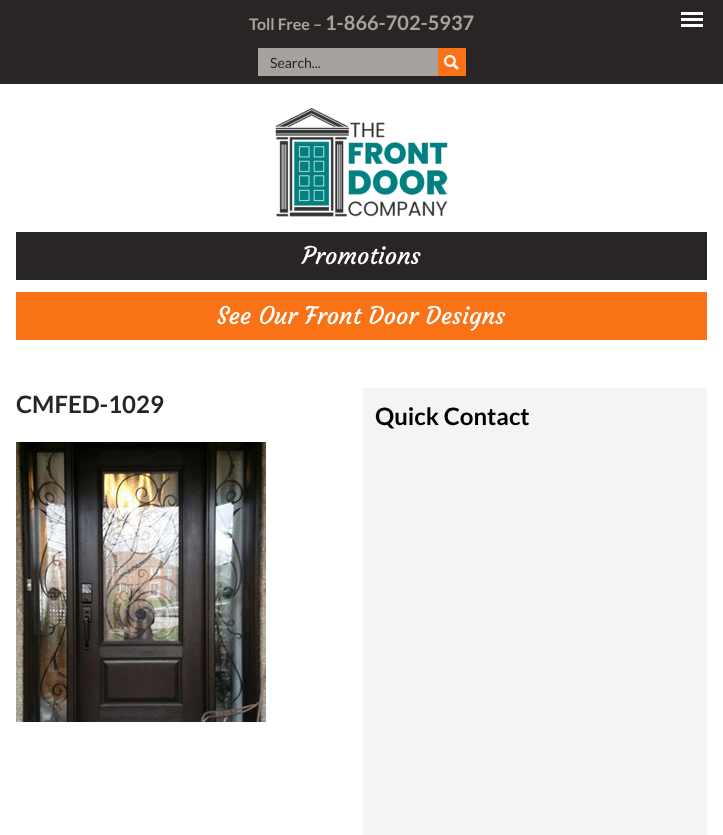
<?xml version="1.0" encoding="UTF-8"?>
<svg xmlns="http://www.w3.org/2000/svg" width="723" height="835">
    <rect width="100%" height="100%" fill="#FFFFFF"/>
    <rect x="0" y="0" width="723" height="84" fill="#292524"/>
    <text x="249" y="30" font-family="Lato" font-size="16" font-weight="700" fill="#A8A29E">Toll Free –</text>
    <text x="325" y="30" font-family="Lato" font-size="20" font-weight="700" fill="#A8A29E">1-866-702-5937</text>
    <rect x="258" y="48" width="180" height="28" fill="#A8A29E"/>
    <text x="270" y="68" font-family="Lato" font-size="14" fill="#292524">Search...</text>
    <rect x="438" y="48" width="28" height="28" fill="#F97316"/>
    <image x="444" y="55" width="15" height="15" href="img_01.png"/>
    <rect x="681" y="12" width="22" height="3" fill="#FFFFFF"/>
    <rect x="681" y="18" width="22" height="3" fill="#FFFFFF"/>
    <rect x="681" y="24" width="22" height="3" fill="#FFFFFF"/>
    <image x="275" y="107" width="173" height="110" href="img_02.png"/>
    <rect x="16" y="232" width="691" height="48" fill="#292524"/>
    <text x="302" y="264" font-family="Courgette" font-size="24" fill="#FFFFFF">Promotions</text>
    <rect x="16" y="292" width="691" height="48" fill="#F97316"/>
    <text x="217" y="324" font-family="Courgette" font-size="24" fill="#FFFFFF">See Our Front Door Designs</text>
    <text x="16" y="413" font-family="Lato" font-size="24" font-weight="700" fill="#292524">CMFED-1029</text>
    <image x="16" y="442" width="250" height="280" href="img_03.png"/>
    <rect x="363" y="388" width="344" height="447" fill="#F3F4F6"/>
    <text x="375" y="425" font-family="Lato" font-size="24" font-weight="700" fill="#000000">Quick Contact</text>
</svg>
